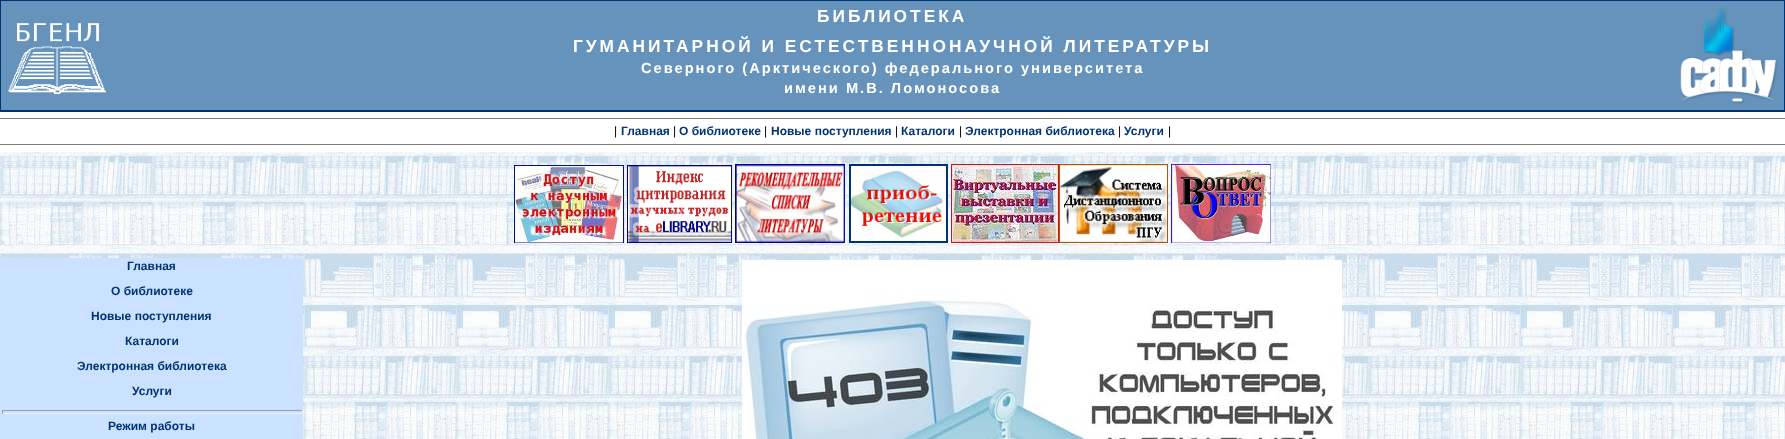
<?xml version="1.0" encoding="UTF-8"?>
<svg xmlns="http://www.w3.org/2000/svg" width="1785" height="439">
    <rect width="100%" height="100%" fill="#FFFFFF"/>
    <image x="0" y="152" width="1785" height="287" href="img_01.png"/>
    <rect x="0" y="0" width="1785" height="1" fill="#003371"/>
    <rect x="0" y="1" width="1" height="109" fill="#003371"/>
    <rect x="1" y="1" width="1783" height="109" fill="#6693BC"/>
    <image x="8" y="23" width="99" height="72" href="img_02.png"/>
    <rect x="1784" y="1" width="1" height="109" fill="#003371"/>
    <text x="817" y="22" font-family="Liberation Sans" font-size="17.35" font-weight="700" letter-spacing="3" fill="#FFFFFF">БИБЛИОТЕКА</text>
    <text x="573" y="52" font-family="Liberation Sans" font-size="17.35" font-weight="700" letter-spacing="3" fill="#FFFFFF">ГУМАНИТАРНОЙ И ЕСТЕСТВЕННОНАУЧНОЙ ЛИТЕРАТУРЫ</text>
    <text x="641" y="73" font-family="Liberation Sans" font-size="14.65" font-weight="700" letter-spacing="2" fill="#FFFFFF">Северного (Арктического) федерального университета</text>
    <text x="784" y="93" font-family="Liberation Sans" font-size="14.65" font-weight="700" letter-spacing="2" fill="#FFFFFF">имени М.В. Ломоносова</text>
    <image x="1680" y="7" width="98" height="97" href="img_03.png"/>
    <rect x="0" y="110" width="1785" height="2" fill="#003371"/>
    <rect x="0" y="118" width="1785" height="1" fill="#808080"/>
    <text x="614" y="135" font-family="Liberation Sans" font-size="12" fill="#000000">|</text>
    <text x="621" y="135" font-family="Liberation Sans" font-size="12" font-weight="700" fill="#003371">Главная</text>
    <text x="673" y="135" font-family="Liberation Sans" font-size="12" fill="#000000">|</text>
    <text x="679" y="135" font-family="Liberation Sans" font-size="12" font-weight="700" fill="#003371">О библиотеке</text>
    <text x="764" y="135" font-family="Liberation Sans" font-size="12" fill="#000000">|</text>
    <text x="771" y="135" font-family="Liberation Sans" font-size="12" font-weight="700" fill="#003371">Новые поступления</text>
    <text x="895" y="135" font-family="Liberation Sans" font-size="12" fill="#000000">|</text>
    <text x="901" y="135" font-family="Liberation Sans" font-size="12" font-weight="700" fill="#003371">Каталоги</text>
    <text x="959" y="135" font-family="Liberation Sans" font-size="12" fill="#000000">|</text>
    <text x="965" y="135" font-family="Liberation Sans" font-size="12" font-weight="700" fill="#003371">Электронная библиотека</text>
    <text x="1118" y="135" font-family="Liberation Sans" font-size="12" fill="#000000">|</text>
    <text x="1124" y="135" font-family="Liberation Sans" font-size="12" font-weight="700" fill="#003371">Услуги</text>
    <text x="1168" y="135" font-family="Liberation Sans" font-size="12" fill="#000000">|</text>
    <rect x="0" y="144" width="1785" height="1" fill="#808080"/>
    <image x="514" y="165" width="110" height="78" href="img_04.png"/>
    <image x="627" y="165" width="105" height="78" href="img_05.png"/>
    <image x="735" y="164" width="110" height="79" href="img_06.png"/>
    <rect x="850" y="165" width="97" height="77" fill="none" stroke="#003371" stroke-width="2"/>
    <image x="951" y="164" width="108" height="79" href="img_07.png"/>
    <image x="1059" y="164" width="109" height="79" href="img_08.png"/>
    <image x="1171" y="164" width="100" height="79" href="img_09.png"/>
    <image x="851" y="166" width="95" height="75" href="img_10.png"/>
    <rect x="0" y="258" width="303" height="181" fill="#CAE1FF"/>
    <text x="127" y="270" font-family="Liberation Sans" font-size="12" font-weight="700" fill="#003371">Главная</text>
    <text x="111" y="295" font-family="Liberation Sans" font-size="12" font-weight="700" fill="#003371">О библиотеке</text>
    <text x="91" y="320" font-family="Liberation Sans" font-size="12" font-weight="700" fill="#003371">Новые поступления</text>
    <text x="125" y="345" font-family="Liberation Sans" font-size="12" font-weight="700" fill="#003371">Каталоги</text>
    <text x="77" y="370" font-family="Liberation Sans" font-size="12" font-weight="700" fill="#003371">Электронная библиотека</text>
    <text x="132" y="395" font-family="Liberation Sans" font-size="12" font-weight="700" fill="#003371">Услуги</text>
    <rect x="2" y="410" width="301" height="1" fill="#9F9F9F"/>
    <rect x="302" y="410" width="1" height="4" fill="#EEEEEE"/>
    <rect x="2" y="413" width="301" height="1" fill="#EEEEEE"/>
    <rect x="2" y="410" width="1" height="4" fill="#9F9F9F"/>
    <text x="108" y="430" font-family="Liberation Sans" font-size="12" font-weight="700" fill="#003371">Режим работы</text>
    <image x="742" y="260" width="600" height="179" href="img_11.png"/>
</svg>
